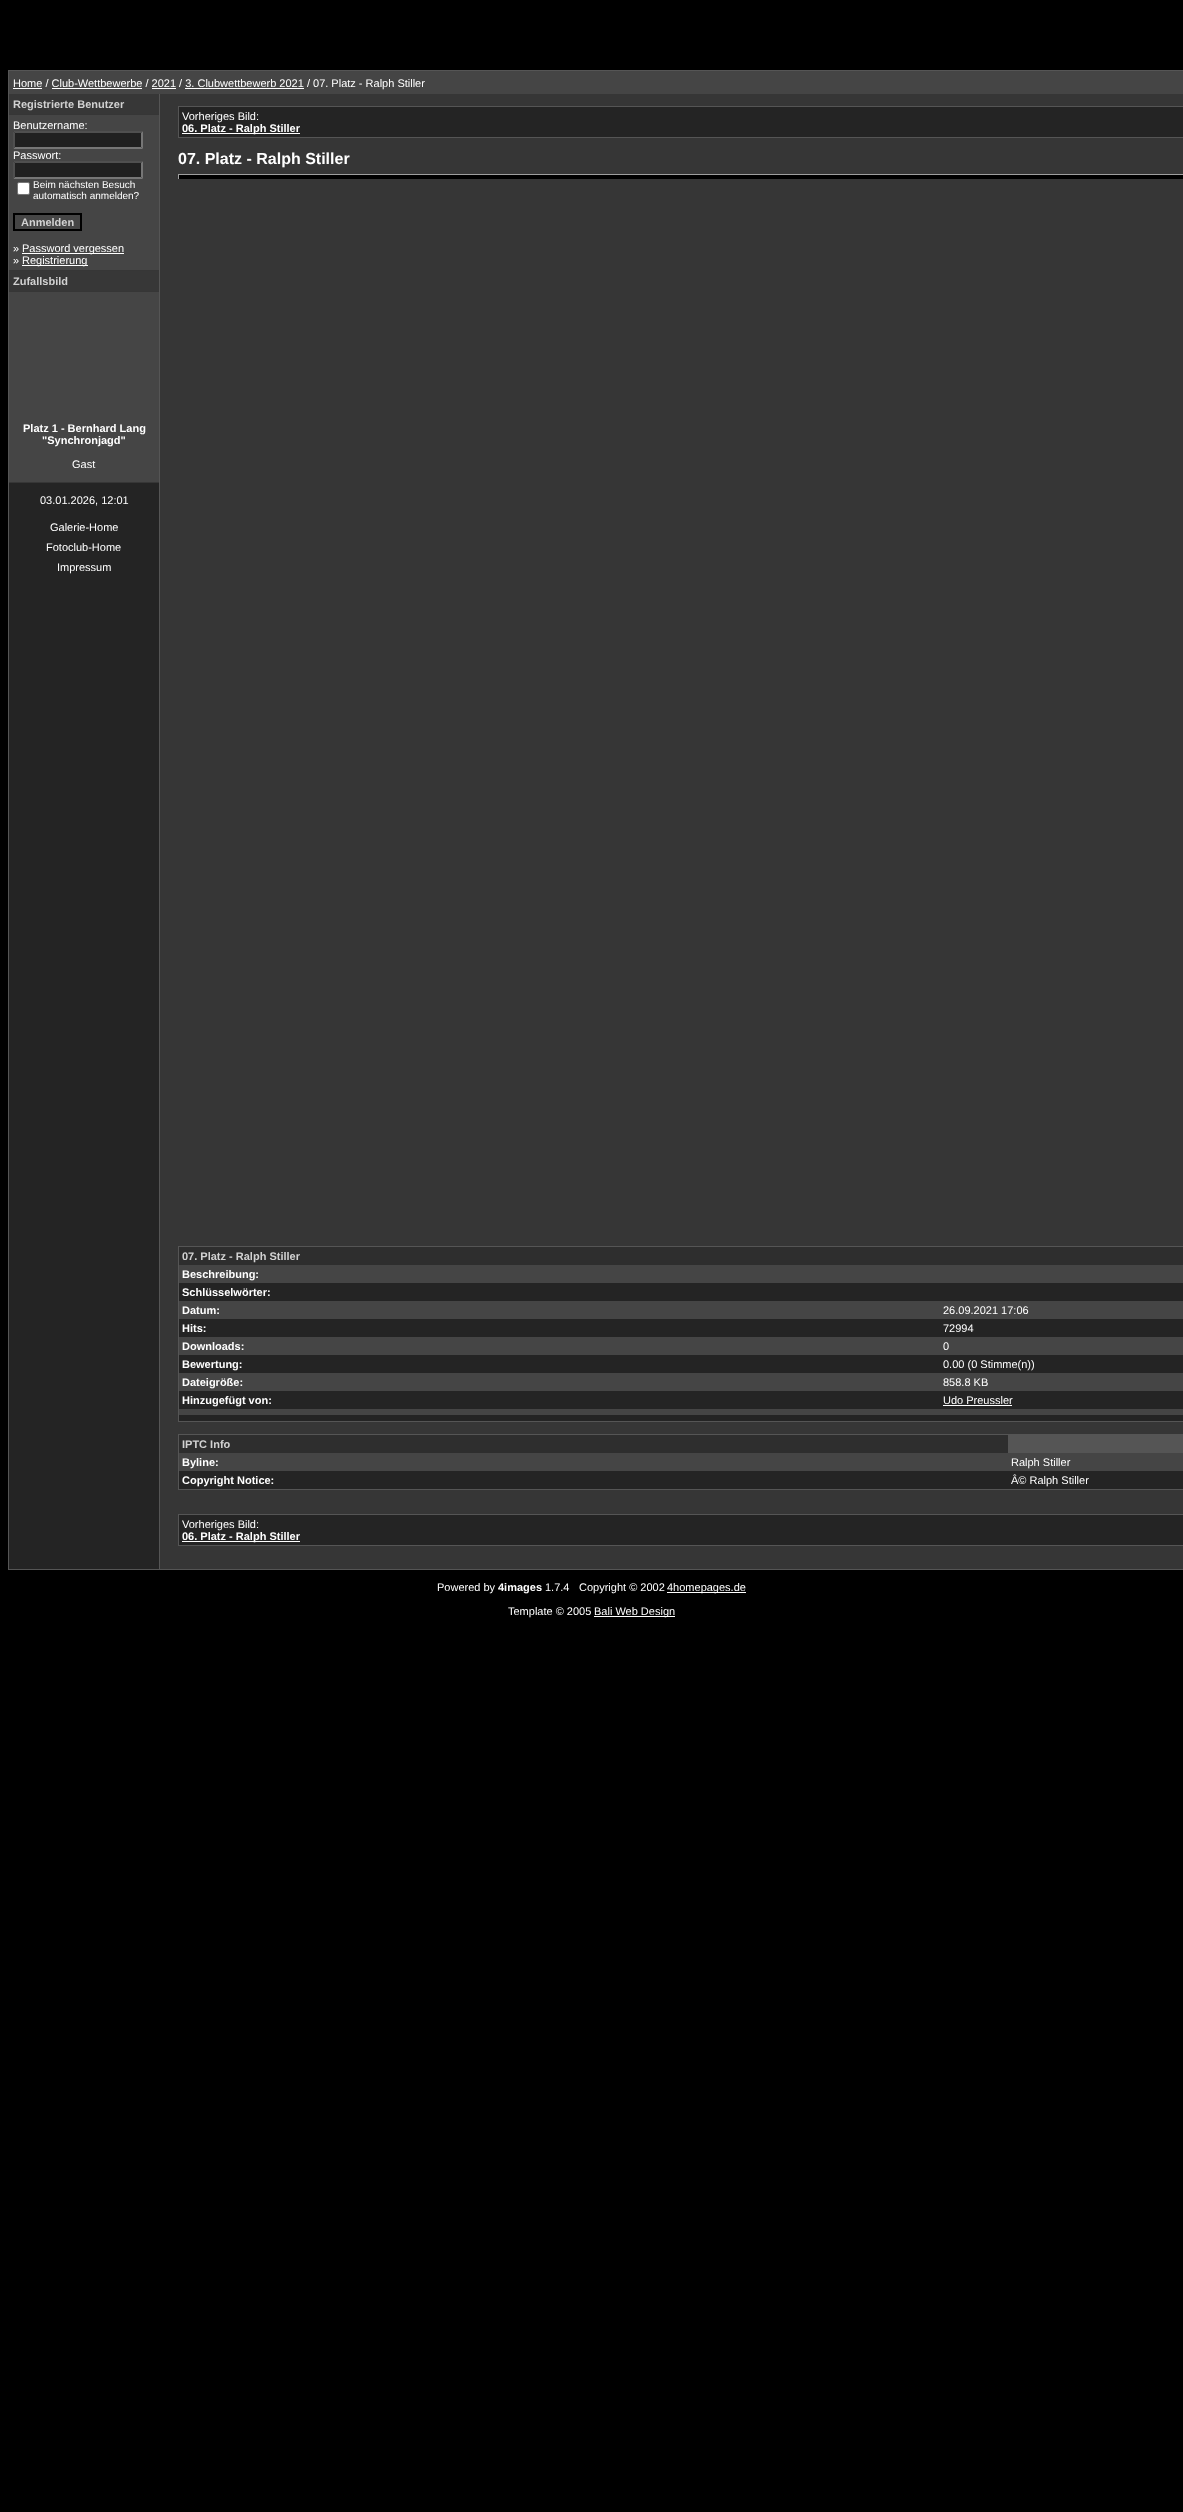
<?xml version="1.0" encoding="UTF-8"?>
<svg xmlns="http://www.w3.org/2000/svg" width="1183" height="2512">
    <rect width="100%" height="100%" fill="#000000"/>
    <rect x="8" y="70" width="1175" height="1500" fill="#555555"/>
    <rect x="160" y="94" width="1023" height="1475" fill="#363636"/>
    <rect x="9" y="71" width="1174" height="23" fill="#454545"/>
    <rect x="13" y="88" width="29" height="1" fill="#FFFFFF"/>
    <text x="13" y="87" font-family="Liberation Sans" font-size="11" fill="#FFFFFF">Home / Club-Wettbewerbe / 2021 / 3. Clubwettbewerb 2021 / 07. Platz - Ralph Stiller</text>
    <rect x="52" y="88" width="90" height="1" fill="#FFFFFF"/>
    <rect x="152" y="88" width="24" height="1" fill="#FFFFFF"/>
    <rect x="185" y="88" width="119" height="1" fill="#FFFFFF"/>
    <rect x="9" y="483" width="150" height="1086" fill="#242424"/>
    <rect x="9" y="94" width="150" height="20" fill="#373737"/>
    <text x="13" y="108" font-family="Liberation Sans" font-size="11" font-weight="700" fill="#D2D2D2">Registrierte Benutzer</text>
    <rect x="9" y="114" width="150" height="1" fill="#363636"/>
    <rect x="9" y="115" width="150" height="155" fill="#454545"/>
    <text x="13" y="129" font-family="Liberation Sans" font-size="11" fill="#FFFFFF">Benutzername:</text>
    <rect x="13" y="131" width="130" height="18" fill="#202020"/>
    <path d="M 13 131 H 143 L 141 133 H 15 Z" fill="#4F4F4F"/>
    <path d="M 143 131 V 149 L 141 147 V 133 Z" fill="#767676"/>
    <path d="M 143 149 H 13 L 15 147 H 141 Z" fill="#767676"/>
    <path d="M 13 149 V 131 L 15 133 V 147 Z" fill="#4F4F4F"/>
    <text x="13" y="159" font-family="Liberation Sans" font-size="11" fill="#FFFFFF">Passwort:</text>
    <rect x="13" y="161" width="130" height="18" fill="#202020"/>
    <path d="M 13 161 H 143 L 141 163 H 15 Z" fill="#4F4F4F"/>
    <path d="M 143 161 V 179 L 141 177 V 163 Z" fill="#767676"/>
    <path d="M 143 179 H 13 L 15 177 H 141 Z" fill="#767676"/>
    <path d="M 13 179 V 161 L 15 163 V 177 Z" fill="#4F4F4F"/>
    <rect x="17.5" y="182.5" width="12" height="12" rx="1.5" fill="#FFFFFF" stroke="#767676"/>
    <text font-family="Liberation Sans" font-size="10" fill="#FFFFFF">
        <tspan x="33" y="188">Beim nächsten Besuch</tspan>
        <tspan x="33" y="199">automatisch anmelden?</tspan>
    </text>
    <rect x="14" y="214" width="67" height="16" fill="none" stroke="#000000" stroke-width="2"/>
    <text x="21" y="226" font-family="Liberation Sans" font-size="11" font-weight="700" fill="#D2D2D2">Anmelden</text>
    <text x="13" y="252" font-family="Liberation Sans" font-size="11" fill="#FFFFFF">»</text>
    <rect x="22" y="253" width="102" height="1" fill="#FFFFFF"/>
    <text x="22" y="252" font-family="Liberation Sans" font-size="11" fill="#FFFFFF">Password vergessen</text>
    <text x="13" y="264" font-family="Liberation Sans" font-size="11" fill="#FFFFFF">»</text>
    <rect x="22" y="265" width="66" height="1" fill="#FFFFFF"/>
    <text x="22" y="264" font-family="Liberation Sans" font-size="11" fill="#FFFFFF">Registrierung</text>
    <rect x="9" y="270" width="150" height="1" fill="#363636"/>
    <rect x="9" y="271" width="150" height="20" fill="#373737"/>
    <text x="13" y="285" font-family="Liberation Sans" font-size="11" font-weight="700" fill="#D2D2D2">Zufallsbild</text>
    <rect x="9" y="291" width="150" height="1" fill="#363636"/>
    <rect x="9" y="292" width="150" height="190" fill="#454545"/>
    <text x="23" y="432" font-family="Liberation Sans" font-size="11" font-weight="700" fill="#FFFFFF">Platz 1 - Bernhard Lang</text>
    <text x="42" y="444" font-family="Liberation Sans" font-size="11" font-weight="700" fill="#FFFFFF">"Synchronjagd"</text>
    <text x="72" y="468" font-family="Liberation Sans" font-size="11" fill="#FFFFFF">Gast</text>
    <rect x="9" y="482" width="150" height="1" fill="#363636"/>
    <text x="40" y="504" font-family="Liberation Sans" font-size="11" fill="#FFFFFF">03.01.2026, 12:01</text>
    <text x="50" y="531" font-family="Liberation Sans" font-size="11" fill="#FFFFFF">Galerie-Home</text>
    <text x="46" y="551" font-family="Liberation Sans" font-size="11" fill="#FFFFFF">Fotoclub-Home</text>
    <text x="57" y="571" font-family="Liberation Sans" font-size="11" fill="#FFFFFF">Impressum</text>
    <rect x="178" y="106" width="1005" height="32" fill="#555555"/>
    <rect x="179" y="107" width="1004" height="30" fill="#242424"/>
    <text x="182" y="120" font-family="Liberation Sans" font-size="11" fill="#FFFFFF">Vorheriges Bild:</text>
    <rect x="182" y="133" width="118" height="1" fill="#FFFFFF"/>
    <text x="182" y="132" font-family="Liberation Sans" font-size="11" font-weight="700" fill="#FFFFFF">06. Platz - Ralph Stiller</text>
    <text x="178" y="164" font-family="Liberation Sans" font-size="16" font-weight="700" fill="#FFFFFF">07. Platz - Ralph Stiller</text>
    <rect x="178" y="175" width="1005" height="4" fill="#000000"/>
    <rect x="178" y="174" width="1005" height="1" fill="#9F9F9F"/>
    <rect x="178" y="174" width="1" height="5" fill="#9F9F9F"/>
    <rect x="178" y="1246" width="1005" height="176" fill="#555555"/>
    <rect x="179" y="1247" width="1004" height="18" fill="#2E2E2E"/>
    <text x="182" y="1260" font-family="Liberation Sans" font-size="11" font-weight="700" fill="#D2D2D2">07. Platz - Ralph Stiller</text>
    <rect x="179" y="1265" width="1004" height="18" fill="#454545"/>
    <text x="182" y="1278" font-family="Liberation Sans" font-size="11" font-weight="700" fill="#FFFFFF">Beschreibung:</text>
    <rect x="179" y="1283" width="1004" height="18" fill="#242424"/>
    <text x="182" y="1296" font-family="Liberation Sans" font-size="11" font-weight="700" fill="#FFFFFF">Schlüsselwörter:</text>
    <rect x="179" y="1301" width="1004" height="18" fill="#454545"/>
    <text x="182" y="1314" font-family="Liberation Sans" font-size="11" font-weight="700" fill="#FFFFFF">Datum:</text>
    <text x="943" y="1314" font-family="Liberation Sans" font-size="11" fill="#FFFFFF">26.09.2021 17:06</text>
    <rect x="179" y="1319" width="1004" height="18" fill="#242424"/>
    <text x="182" y="1332" font-family="Liberation Sans" font-size="11" font-weight="700" fill="#FFFFFF">Hits:</text>
    <text x="943" y="1332" font-family="Liberation Sans" font-size="11" fill="#FFFFFF">72994</text>
    <rect x="179" y="1337" width="1004" height="18" fill="#454545"/>
    <text x="182" y="1350" font-family="Liberation Sans" font-size="11" font-weight="700" fill="#FFFFFF">Downloads:</text>
    <text x="943" y="1350" font-family="Liberation Sans" font-size="11" fill="#FFFFFF">0</text>
    <rect x="179" y="1355" width="1004" height="18" fill="#242424"/>
    <text x="182" y="1368" font-family="Liberation Sans" font-size="11" font-weight="700" fill="#FFFFFF">Bewertung:</text>
    <text x="943" y="1368" font-family="Liberation Sans" font-size="11" fill="#FFFFFF">0.00 (0 Stimme(n))</text>
    <rect x="179" y="1373" width="1004" height="18" fill="#454545"/>
    <text x="182" y="1386" font-family="Liberation Sans" font-size="11" font-weight="700" fill="#FFFFFF">Dateigröße:</text>
    <text x="943" y="1386" font-family="Liberation Sans" font-size="11" fill="#FFFFFF">858.8 KB</text>
    <rect x="179" y="1391" width="1004" height="18" fill="#242424"/>
    <text x="182" y="1404" font-family="Liberation Sans" font-size="11" font-weight="700" fill="#FFFFFF">Hinzugefügt von:</text>
    <text x="943" y="1404" font-family="Liberation Sans" font-size="11" fill="#FFFFFF">Udo Preussler</text>
    <rect x="943" y="1405" width="69" height="1" fill="#FFFFFF"/>
    <rect x="179" y="1409" width="1004" height="6" fill="#454545"/>
    <rect x="179" y="1415" width="1004" height="6" fill="#242424"/>
    <rect x="178" y="1434" width="1005" height="56" fill="#555555"/>
    <rect x="179" y="1435" width="829" height="18" fill="#2E2E2E"/>
    <text x="182" y="1448" font-family="Liberation Sans" font-size="11" font-weight="700" fill="#D2D2D2">IPTC Info</text>
    <rect x="179" y="1453" width="1004" height="18" fill="#454545"/>
    <text x="182" y="1466" font-family="Liberation Sans" font-size="11" font-weight="700" fill="#FFFFFF">Byline:</text>
    <text x="1011" y="1466" font-family="Liberation Sans" font-size="11" fill="#FFFFFF">Ralph Stiller</text>
    <rect x="179" y="1471" width="1004" height="18" fill="#242424"/>
    <text x="182" y="1484" font-family="Liberation Sans" font-size="11" font-weight="700" fill="#FFFFFF">Copyright Notice:</text>
    <text x="1011" y="1484" font-family="Liberation Sans" font-size="11" fill="#FFFFFF">Â© Ralph Stiller</text>
    <rect x="178" y="1514" width="1005" height="32" fill="#555555"/>
    <rect x="179" y="1515" width="1004" height="30" fill="#242424"/>
    <text x="182" y="1528" font-family="Liberation Sans" font-size="11" fill="#FFFFFF">Vorheriges Bild:</text>
    <rect x="182" y="1541" width="118" height="1" fill="#FFFFFF"/>
    <text x="182" y="1540" font-family="Liberation Sans" font-size="11" font-weight="700" fill="#FFFFFF">06. Platz - Ralph Stiller</text>
    <text x="437" y="1591" font-family="Liberation Sans" font-size="11" fill="#FFFFFF">Powered by</text>
    <text x="498" y="1591" font-family="Liberation Sans" font-size="11" font-weight="700" fill="#FFFFFF">4images</text>
    <text x="545" y="1591" font-family="Liberation Sans" font-size="11" fill="#FFFFFF">1.7.4</text>
    <text x="579" y="1591" font-family="Liberation Sans" font-size="11" fill="#FFFFFF">Copyright © 2002</text>
    <rect x="667" y="1592" width="79" height="1" fill="#FFFFFF"/>
    <text x="667" y="1591" font-family="Liberation Sans" font-size="11" fill="#FFFFFF">4homepages.de</text>
    <text x="508" y="1615" font-family="Liberation Sans" font-size="11" fill="#FFFFFF">Template © 2005</text>
    <rect x="594" y="1616" width="81" height="1" fill="#FFFFFF"/>
    <text x="594" y="1615" font-family="Liberation Sans" font-size="11" fill="#FFFFFF">Bali Web Design</text>
</svg>
